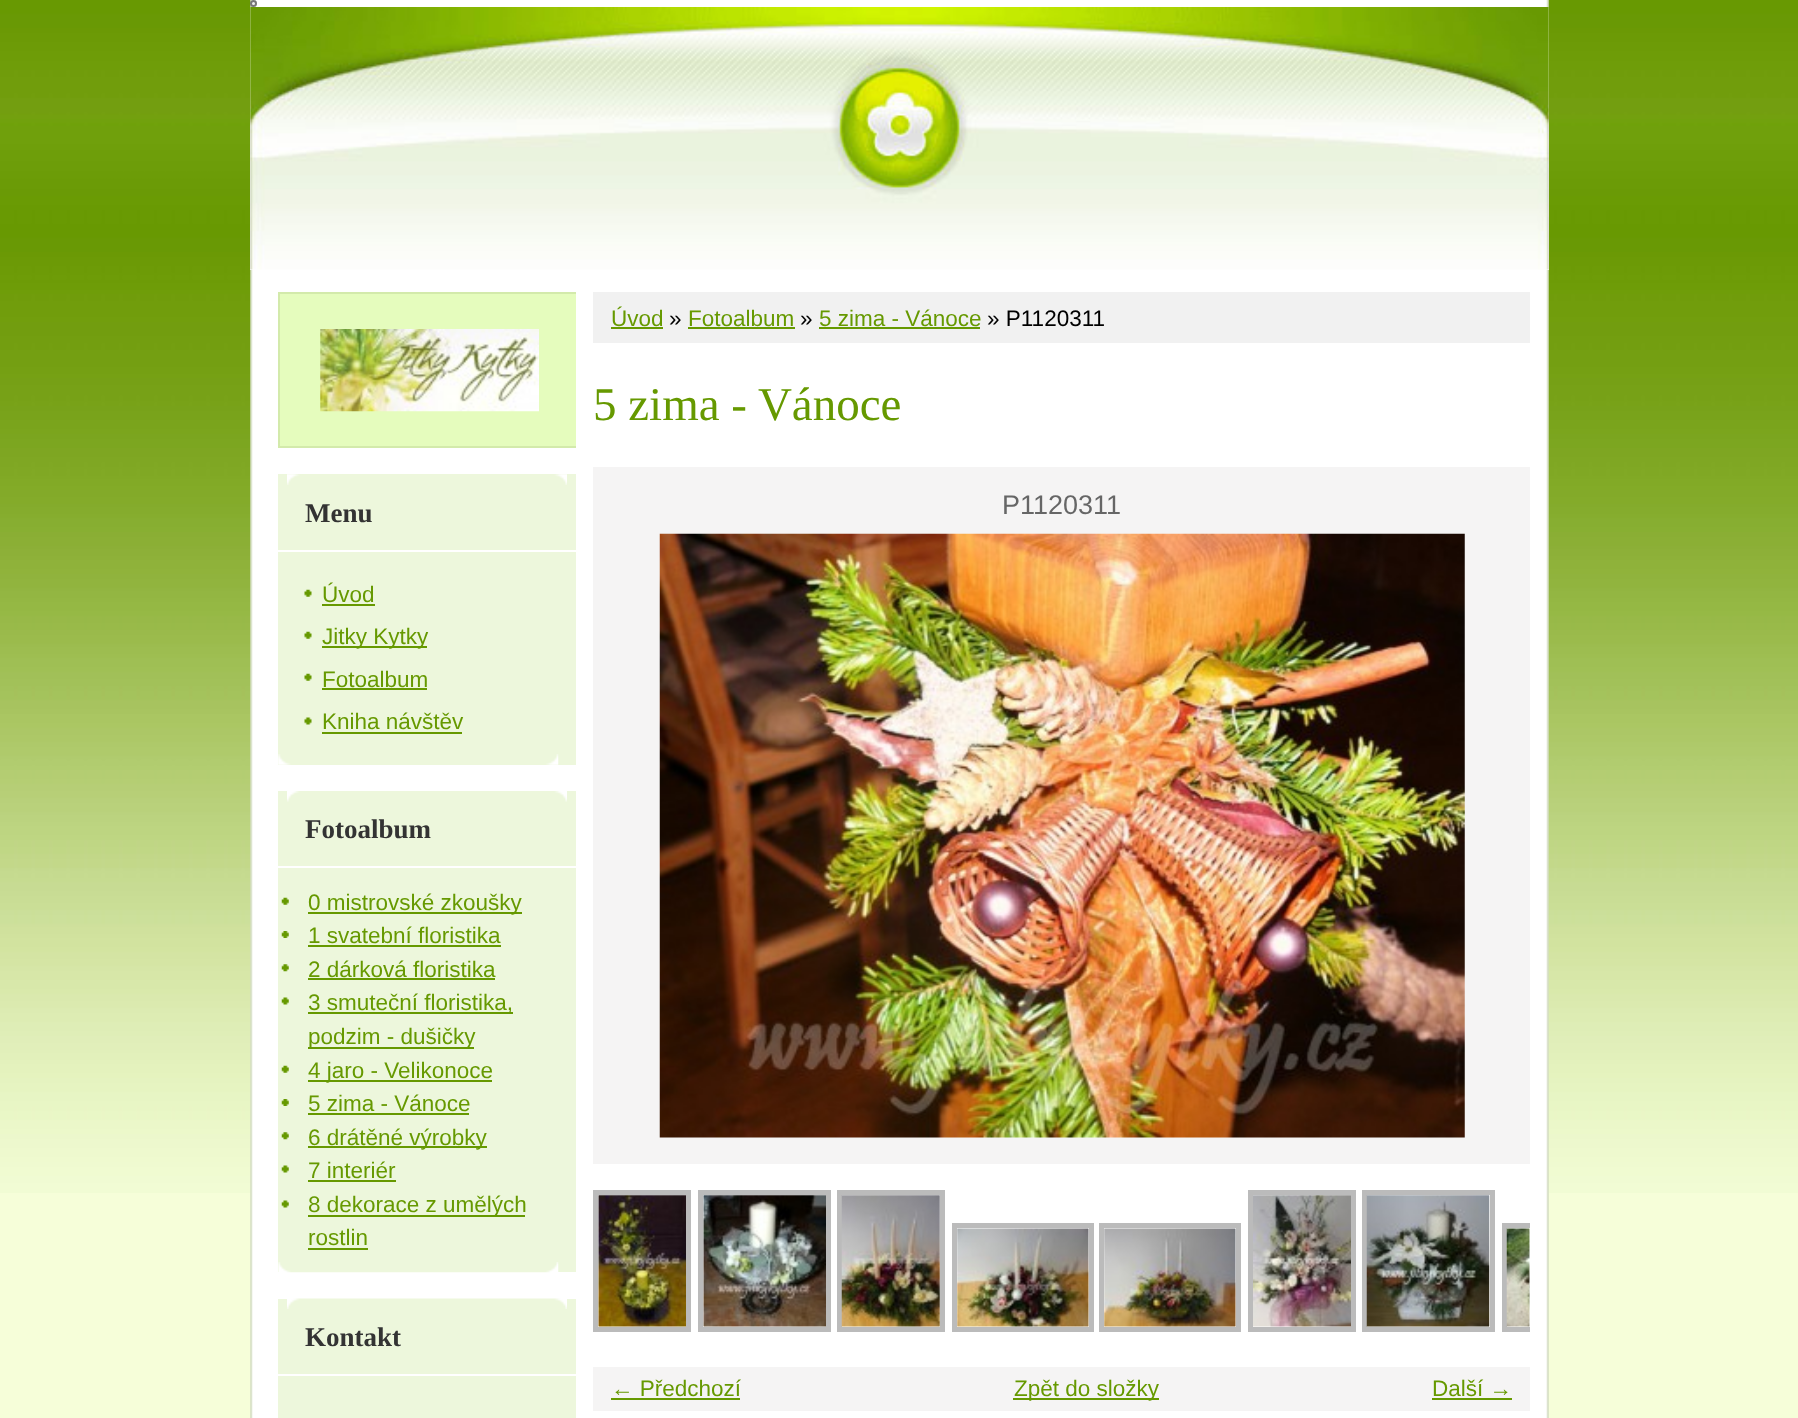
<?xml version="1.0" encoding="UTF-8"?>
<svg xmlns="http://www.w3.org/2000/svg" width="1798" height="1418">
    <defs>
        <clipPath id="clip1"><rect x="278" y="292" width="298" height="182"/></clipPath>
        <clipPath id="clip2"><rect x="593" y="1190" width="937" height="151"/></clipPath>
    </defs>
    <rect width="100%" height="100%" fill="#F6FED9"/>
    <image x="0" y="0" width="1798" height="1193" href="img_01.png"/>
    <image x="250" y="0" width="1299" height="1418" href="img_02.png"/>
    <circle cx="253.5" cy="3.5" r="2.5" fill="#EFEFEF" stroke="#767676" stroke-width="2"/>
    <rect x="250" y="7" width="1299" height="263" fill="#FFFFFF"/>
    <image x="250" y="7" width="1299" height="263" href="img_03.png"/>
    <rect x="280" y="294" width="296" height="152" fill="#E5FCBD"/>
    <g clip-path="url(#clip1)">
        <rect x="279" y="293" width="299" height="154" fill="none" stroke="#D3EAAB" stroke-width="2"/>
    </g>
    <image x="320" y="329" width="219" height="83" href="img_04.png"/>
    <rect x="278" y="474" width="298" height="291" fill="#EDF7DC"/>
    <image x="278" y="754" width="281" height="11" href="img_05.png"/>
    <image x="287" y="474" width="280" height="11" href="img_06.png"/>
    <rect x="278" y="550" width="298" height="2" fill="#FFFFFF"/>
    <text x="305" y="522" font-family="Liberation Serif" font-size="27" font-weight="700" fill="#333333">Menu</text>
    <image x="304" y="589" width="8" height="8" href="img_07.png"/>
    <text x="322" y="602" font-family="Liberation Sans" font-size="22.5" fill="#669900">Úvod</text>
    <rect x="322" y="604" width="53" height="2" fill="#669900"/>
    <image x="304" y="631" width="8" height="8" href="img_07.png"/>
    <rect x="322" y="646" width="105" height="2" fill="#669900"/>
    <text x="322" y="644" font-family="Liberation Sans" font-size="22.5" fill="#669900">Jitky Kytky</text>
    <image x="304" y="673" width="8" height="8" href="img_07.png"/>
    <text x="322" y="687" font-family="Liberation Sans" font-size="22.5" fill="#669900">Fotoalbum</text>
    <rect x="322" y="688" width="105" height="2" fill="#669900"/>
    <image x="304" y="717" width="8" height="8" href="img_08.png"/>
    <text x="322" y="729" font-family="Liberation Sans" font-size="22.5" fill="#669900">Kniha návštěv</text>
    <rect x="322" y="732" width="140" height="2" fill="#669900"/>
    <rect x="278" y="791" width="298" height="481" fill="#EDF7DC"/>
    <image x="278" y="1262" width="281" height="11" href="img_09.png"/>
    <image x="287" y="791" width="280" height="11" href="img_10.png"/>
    <rect x="278" y="866" width="298" height="2" fill="#FFFFFF"/>
    <text x="305" y="838" font-family="Liberation Serif" font-size="27" font-weight="700" fill="#333333">Fotoalbum</text>
    <image x="281" y="897" width="8" height="8" href="img_11.png"/>
    <rect x="308" y="912" width="214" height="2" fill="#669900"/>
    <text x="308" y="910" font-family="Liberation Sans" font-size="22.5" fill="#669900">0 mistrovské zkoušky</text>
    <image x="281" y="931" width="8" height="7" href="img_12.png"/>
    <text x="308" y="943" font-family="Liberation Sans" font-size="22.5" fill="#669900">1 svatební floristika</text>
    <rect x="308" y="945" width="193" height="2" fill="#669900"/>
    <image x="281" y="964" width="8" height="8" href="img_13.png"/>
    <text x="308" y="977" font-family="Liberation Sans" font-size="22.5" fill="#669900">2 dárková floristika</text>
    <rect x="308" y="978" width="187" height="2" fill="#669900"/>
    <image x="281" y="997" width="8" height="8" href="img_14.png"/>
    <rect x="308" y="1012" width="205" height="2" fill="#669900"/>
    <text x="308" y="1010" font-family="Liberation Sans" font-size="22.5" fill="#669900">3 smuteční floristika,</text>
    <rect x="308" y="1047" width="166" height="2" fill="#669900"/>
    <text x="308" y="1044" font-family="Liberation Sans" font-size="22.5" fill="#669900">podzim - dušičky</text>
    <image x="281" y="1065" width="8" height="8" href="img_11.png"/>
    <rect x="308" y="1080" width="184" height="2" fill="#669900"/>
    <text x="308" y="1078" font-family="Liberation Sans" font-size="22.5" fill="#669900">4 jaro - Velikonoce</text>
    <image x="281" y="1099" width="8" height="7" href="img_12.png"/>
    <text x="308" y="1111" font-family="Liberation Sans" font-size="22.5" fill="#669900">5 zima - Vánoce</text>
    <rect x="308" y="1113" width="161" height="2" fill="#669900"/>
    <image x="281" y="1132" width="8" height="8" href="img_13.png"/>
    <rect x="308" y="1146" width="179" height="2" fill="#669900"/>
    <text x="308" y="1145" font-family="Liberation Sans" font-size="22.5" fill="#669900">6 drátěné výrobky</text>
    <image x="281" y="1165" width="8" height="8" href="img_14.png"/>
    <text x="308" y="1178" font-family="Liberation Sans" font-size="22.5" fill="#669900">7 interiér</text>
    <rect x="308" y="1180" width="88" height="2" fill="#669900"/>
    <image x="281" y="1200" width="8" height="8" href="img_14.png"/>
    <rect x="308" y="1215" width="217" height="2" fill="#669900"/>
    <text font-family="Liberation Sans" font-size="22.5" fill="#669900">
        <tspan x="308" y="1212">8 dekorace z umělých</tspan>
        <tspan x="308" y="1245">rostlin</tspan>
    </text>
    <rect x="308" y="1248" width="60" height="2" fill="#669900"/>
    <rect x="278" y="1299" width="298" height="119" fill="#EDF7DC"/>
    <image x="287" y="1298" width="280" height="11" href="img_15.png"/>
    <rect x="278" y="1374" width="298" height="2" fill="#FFFFFF"/>
    <text x="305" y="1346" font-family="Liberation Serif" font-size="27" font-weight="700" fill="#333333">Kontakt</text>
    <rect x="593" y="292" width="937" height="51" fill="#F1F1F1"/>
    <text x="611" y="326" font-family="Liberation Sans" font-size="22.5" fill="#669900">Úvod</text>
    <rect x="611" y="327" width="52" height="2" fill="#669900"/>
    <text x="669" y="326" font-family="Liberation Sans" font-size="22.5" fill="#000000">»</text>
    <text x="688" y="326" font-family="Liberation Sans" font-size="22.5" fill="#669900">Fotoalbum</text>
    <rect x="688" y="327" width="107" height="2" fill="#669900"/>
    <text x="800" y="326" font-family="Liberation Sans" font-size="22.5" fill="#000000">»</text>
    <text x="819" y="326" font-family="Liberation Sans" font-size="22.5" fill="#669900">5 zima - Vánoce</text>
    <rect x="819" y="327" width="161" height="2" fill="#669900"/>
    <text x="987" y="326" font-family="Liberation Sans" font-size="22.5" fill="#000000">» P1120311</text>
    <text x="593" y="420" font-family="Liberation Serif" font-size="47" fill="#669900">5 zima - Vánoce</text>
    <rect x="593" y="467" width="937" height="697" fill="#F5F4F4"/>
    <text x="1002" y="514" font-family="Liberation Sans" font-size="27" fill="#666666">P1120311</text>
    <image x="659" y="533" width="806" height="605" href="img_16.png"/>
    <rect x="595.5" y="1192.5" width="93" height="137" fill="none" stroke="#BBBBBB" stroke-width="5"/>
    <rect x="700.5" y="1192.5" width="128" height="137" fill="none" stroke="#BBBBBB" stroke-width="5"/>
    <rect x="839.5" y="1192.5" width="103" height="137" fill="none" stroke="#BBBBBB" stroke-width="5"/>
    <rect x="1250.5" y="1192.5" width="103" height="137" fill="none" stroke="#BBBBBB" stroke-width="5"/>
    <rect x="1364.5" y="1192.5" width="128" height="137" fill="none" stroke="#BBBBBB" stroke-width="5"/>
    <image x="598" y="1195" width="88" height="132" href="img_17.png"/>
    <image x="703" y="1195" width="123" height="132" href="img_18.png"/>
    <image x="841" y="1195" width="99" height="132" href="img_19.png"/>
    <rect x="954.5" y="1225.5" width="137" height="104" fill="none" stroke="#BBBBBB" stroke-width="5"/>
    <rect x="1101.5" y="1225.5" width="137" height="104" fill="none" stroke="#BBBBBB" stroke-width="5"/>
    <image x="1253" y="1195" width="98" height="132" href="img_20.png"/>
    <image x="1366" y="1195" width="124" height="132" href="img_21.png"/>
    <g clip-path="url(#clip2)">
        <rect x="1504.5" y="1225.5" width="136" height="104" fill="none" stroke="#BBBBBB" stroke-width="5"/>
    </g>
    <image x="957" y="1228" width="132" height="99" href="img_22.png"/>
    <image x="1104" y="1228" width="132" height="99" href="img_23.png"/>
    <image x="1506" y="1228" width="24" height="99" href="img_24.png"/>
    <rect x="593" y="1367" width="937" height="44" fill="#F5F4F4"/>
    <text x="611" y="1396" font-family="Liberation Sans" font-size="22.5" fill="#669900">← Předchozí</text>
    <rect x="611" y="1398" width="129" height="2" fill="#669900"/>
    <rect x="1013" y="1398" width="146" height="2" fill="#669900"/>
    <text x="1014" y="1396" font-family="Liberation Sans" font-size="22.5" fill="#669900">Zpět do složky</text>
    <text x="1432" y="1396" font-family="Liberation Sans" font-size="22.5" fill="#669900">Další →</text>
    <rect x="1432" y="1398" width="80" height="2" fill="#669900"/>
</svg>
